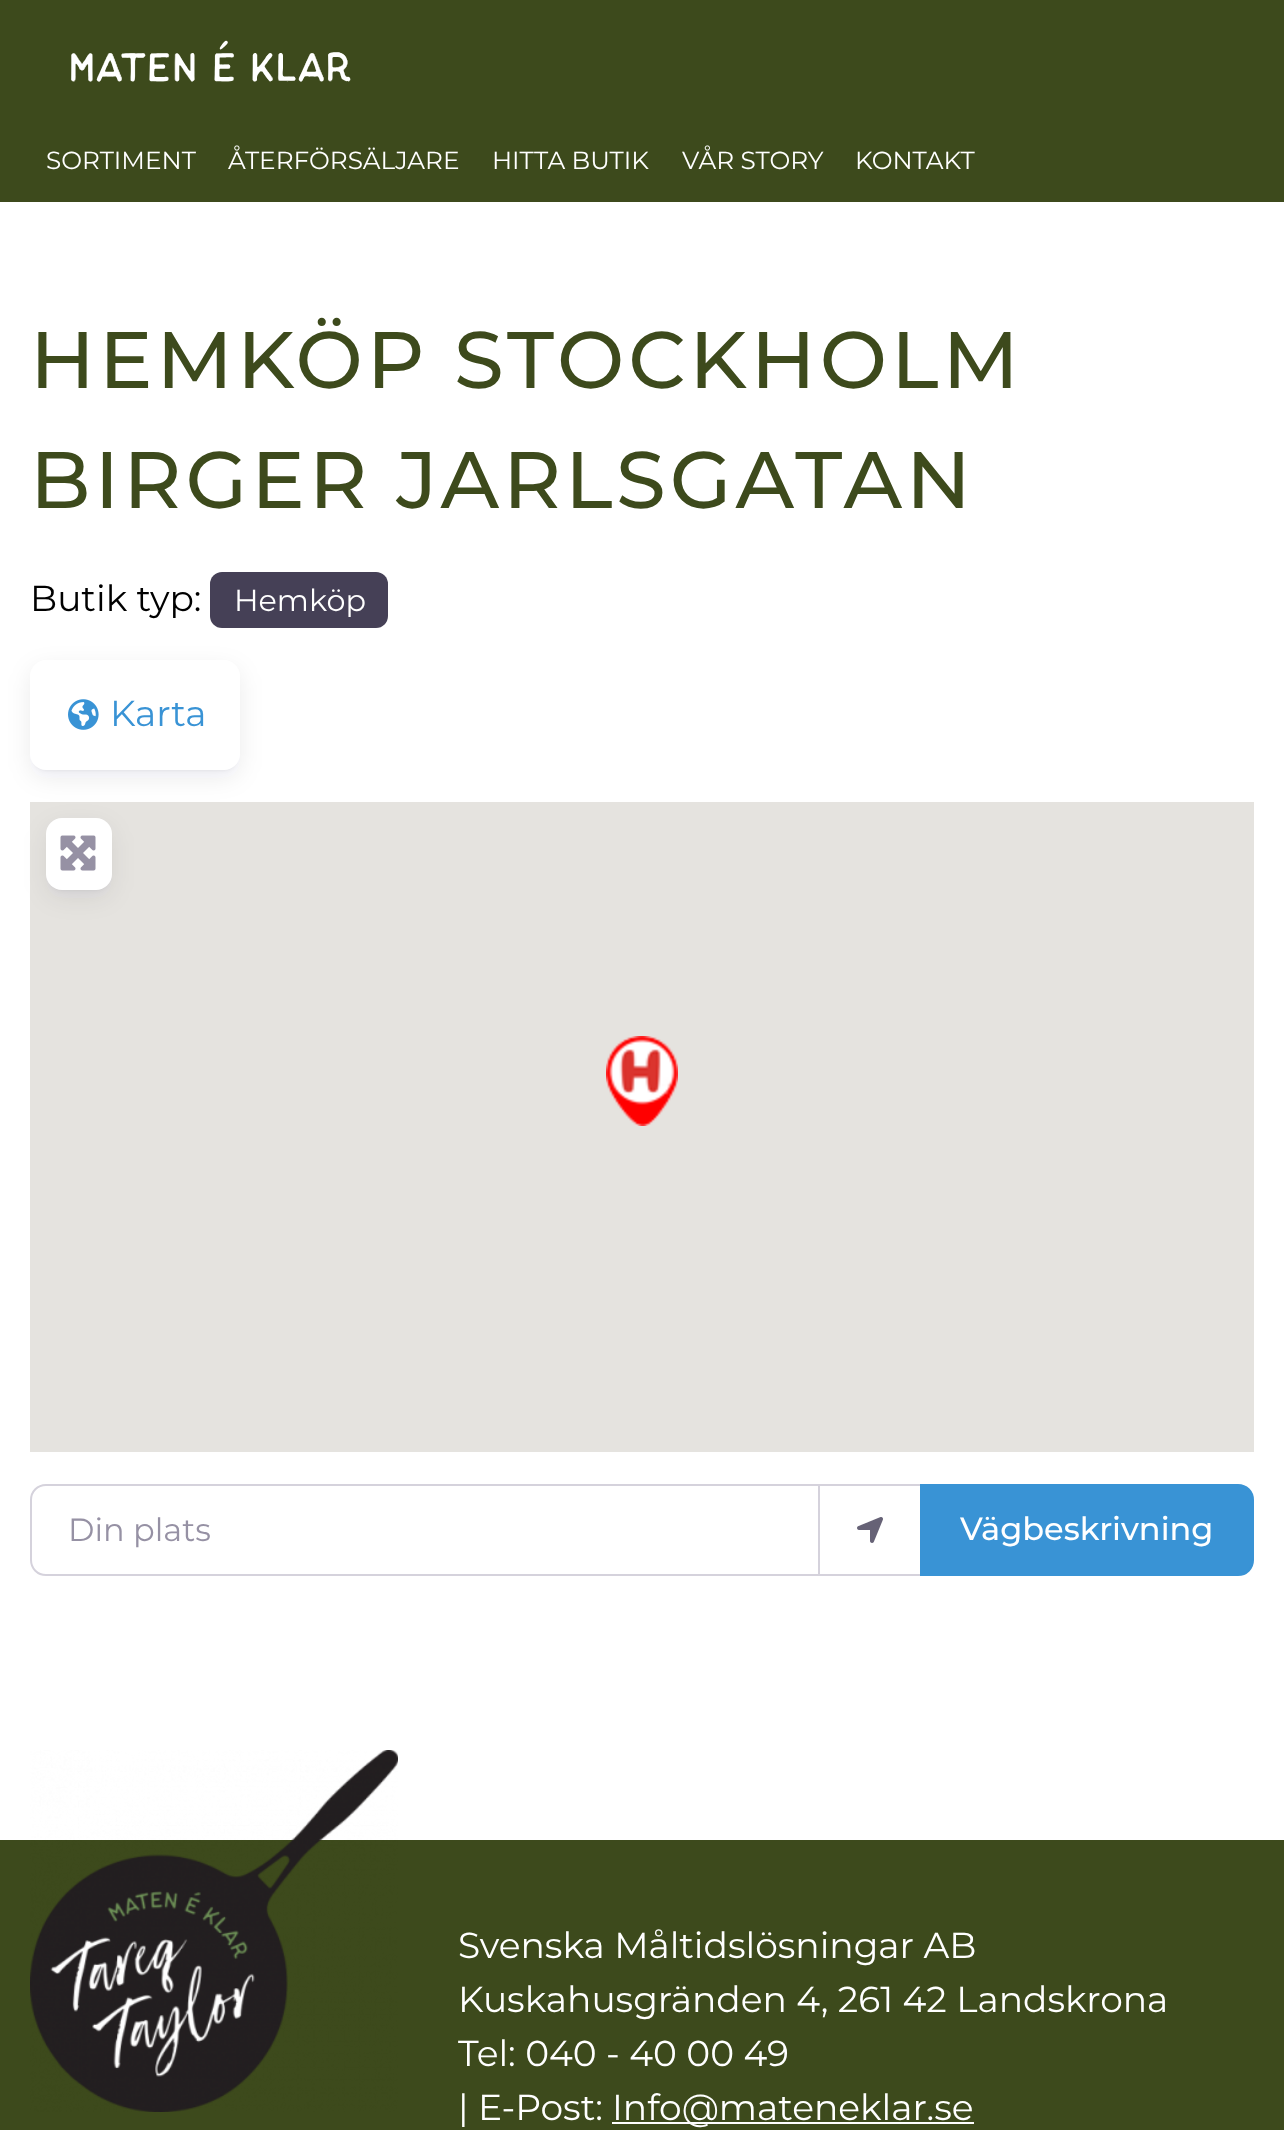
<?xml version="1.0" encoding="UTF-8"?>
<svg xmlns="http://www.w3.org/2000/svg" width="1284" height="2130">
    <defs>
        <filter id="blur1" x="-50%" y="-200%" width="200%" height="500%"><feGaussianBlur stdDeviation="12"/></filter>
        <filter id="blur2" x="-50%" y="-200%" width="200%" height="500%"><feGaussianBlur stdDeviation="2"/></filter>
    </defs>
    <rect width="100%" height="100%" fill="#FFFFFF"/>
    <rect x="0" y="0" width="1284" height="202" fill="#3D4A1C"/>
    <image x="71" y="40" width="280" height="42" href="img_01.png"/>
    <text x="46" y="169" font-family="Montserrat" font-size="24.75" fill="#FFFFFF">SORTIMENT</text>
    <text x="228" y="169" font-family="Montserrat" font-size="24.75" fill="#FFFFFF">ÅTERFÖRSÄLJARE</text>
    <text x="492" y="169" font-family="Montserrat" font-size="24.75" fill="#FFFFFF">HITTA BUTIK</text>
    <text x="682" y="169" font-family="Montserrat" font-size="24.75" fill="#FFFFFF">VÅR STORY</text>
    <text x="855" y="169" font-family="Montserrat" font-size="24.75" fill="#FFFFFF">KONTAKT</text>
    <text font-family="Montserrat" font-size="80" font-weight="500" letter-spacing="4" fill="#3D4A1C">
        <tspan x="30" y="388">HEMKÖP STOCKHOLM</tspan>
        <tspan x="30" y="508">BIRGER JARLSGATAN</tspan>
    </text>
    <text x="30" y="611" font-family="Montserrat" font-size="36" fill="#000000">Butik typ:</text>
    <rect x="210" y="572" width="178" height="56" rx="12" fill="#454056"/>
    <text x="234" y="611" font-family="Montserrat" font-size="30.25" fill="#FFFFFF">Hemköp</text>
    <rect x="30" y="668" width="210" height="110" rx="16" fill="#1F1B2D" fill-opacity="0.08" filter="url(#blur1)"/>
    <rect x="34" y="668" width="202" height="102" rx="12" fill="#1F1B2D" fill-opacity="0.08" filter="url(#blur2)"/>
    <rect x="30" y="660" width="210" height="110" rx="16" fill="#FFFFFF"/>
    <image x="68" y="699" width="31" height="31" href="img_02.png"/>
    <text x="110" y="726" font-family="Montserrat" font-size="36" fill="#3993D5">Karta</text>
    <rect x="30" y="802" width="1224" height="650" fill="#E5E3DF"/>
    <rect x="46" y="826" width="66" height="72" rx="16" fill="#1F1B2D" fill-opacity="0.08" filter="url(#blur1)"/>
    <rect x="50" y="826" width="58" height="64" rx="12" fill="#1F1B2D" fill-opacity="0.08" filter="url(#blur2)"/>
    <rect x="46" y="818" width="66" height="72" rx="16" fill="#FFFFFF"/>
    <image x="60" y="835" width="36" height="36" href="img_03.png"/>
    <image x="606" y="1036" width="72" height="90" href="img_04.png"/>
    <rect x="819" y="1485" width="102" height="90" fill="none" stroke="#D5D2DC" stroke-width="2"/>
    <path d="M 46 1485 H 819 V 1575 H 46 C 37.5 1575 31 1568.5 31 1560 V 1500 C 31 1491.5 37.5 1485 46 1485 Z" fill="none" stroke="#D5D2DC" stroke-width="2"/>
    <text x="68" y="1541" font-family="Montserrat" font-size="32" fill="#9691A4">Din plats</text>
    <image x="857" y="1517" width="26" height="26" href="img_05.png"/>
    <path d="M 921 1485 H 1238 C 1246.5 1485 1253 1491.5 1253 1500 V 1560 C 1253 1568.5 1246.5 1575 1238 1575 H 921 Z" fill="#3993D5" stroke="#3993D5" stroke-width="2"/>
    <text x="960" y="1540" font-family="Montserrat" font-size="32" font-weight="500" fill="#FFFFFF">Vägbeskrivning</text>
    <rect x="0" y="1840" width="1284" height="290" fill="#3D4A1C"/>
    <image x="30" y="1750" width="368" height="362" href="img_06.png"/>
    <text font-family="Montserrat" font-size="36" fill="#FFFFFF">
        <tspan x="458" y="1958">Svenska Måltidslösningar AB</tspan>
        <tspan x="458" y="2012">Kuskahusgränden 4, 261 42 Landskrona</tspan>
        <tspan x="458" y="2066">Tel: 040 - 40 00 49</tspan>
        <tspan x="458" y="2120">| E-Post:</tspan>
    </text>
    <rect x="612" y="2122" width="362" height="2" fill="#FFFFFF"/>
    <text x="612" y="2120" font-family="Montserrat" font-size="36" fill="#FFFFFF">Info@mateneklar.se</text>
</svg>
